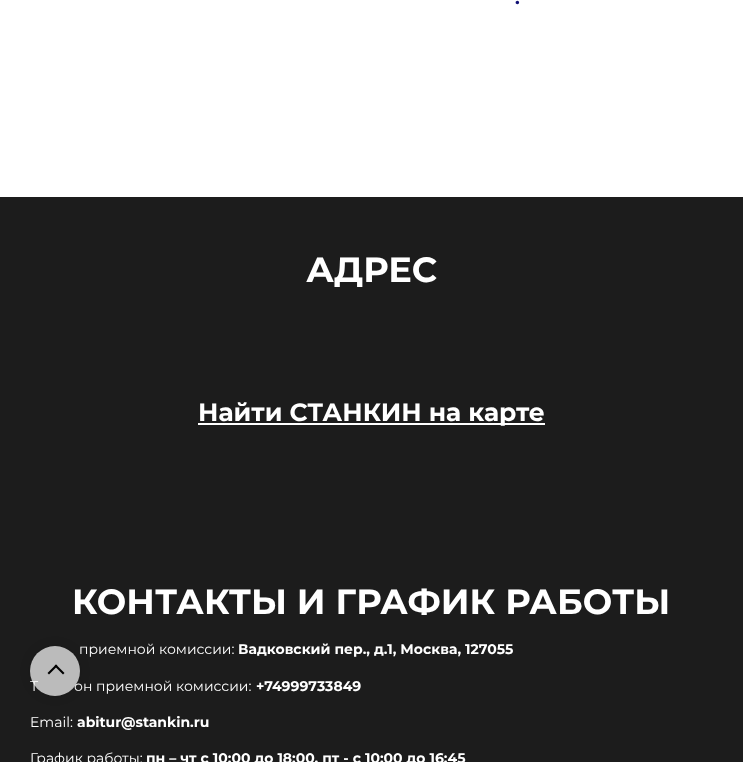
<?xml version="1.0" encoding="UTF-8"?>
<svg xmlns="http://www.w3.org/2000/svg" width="743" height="762">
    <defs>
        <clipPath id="clip1"><path d="M 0 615 H 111 V 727 H 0 Z M 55 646 C 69 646 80 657 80 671 C 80 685 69 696 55 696 C 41 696 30 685 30 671 C 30 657 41 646 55 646 Z" clip-rule="evenodd"/></clipPath>
        <filter id="blur1" x="-50%" y="-200%" width="200%" height="500%"><feGaussianBlur stdDeviation="10"/></filter>
    </defs>
    <rect width="100%" height="100%" fill="#FFFFFF"/>
    <text x="515" y="4" font-family="Montserrat" font-size="18" font-weight="700" fill="#101075">.</text>
    <rect x="0" y="197" width="743" height="565" fill="#1C1C1C"/>
    <text x="306" y="282" font-family="Montserrat" font-size="35" font-weight="700" fill="#FFFFFF">АДРЕС</text>
    <rect x="198" y="423" width="347" height="2" fill="#FFFFFF"/>
    <text x="198" y="421" font-family="Montserrat" font-size="25" font-weight="700" fill="#FFFFFF">Найти СТАНКИН на карте</text>
    <text x="72" y="614" font-family="Montserrat" font-size="35" font-weight="700" fill="#FFFFFF">КОНТАКТЫ И ГРАФИК РАБОТЫ</text>
    <text x="79" y="654" font-family="Montserrat" font-size="14" fill="#FFFFFF">приемной комиссии:</text>
    <text x="238" y="654" font-family="Montserrat" font-size="14" font-weight="700" fill="#FFFFFF">Вадковский пер., д.1, Москва, 127055</text>
    <text x="30" y="691" font-family="Montserrat" font-size="14" fill="#FFFFFF">Т</text>
    <text x="74" y="691" font-family="Montserrat" font-size="14" fill="#FFFFFF">он приемной комиссии:</text>
    <text x="256" y="691" font-family="Montserrat" font-size="14" font-weight="700" fill="#FFFFFF">+74999733849</text>
    <text x="30" y="727" font-family="Montserrat" font-size="14" fill="#FFFFFF">Email:</text>
    <text x="77" y="727" font-family="Montserrat" font-size="14" font-weight="700" fill="#FFFFFF">abitur@stankin.ru</text>
    <text x="30" y="763" font-family="Montserrat" font-size="14" fill="#FFFFFF">График работы:</text>
    <text x="146" y="763" font-family="Montserrat" font-size="14" font-weight="700" fill="#FFFFFF">пн – чт с 10:00 до 18:00, пт - с 10:00 до 16:45</text>
    <g clip-path="url(#clip1)">
        <rect x="30" y="646" width="50" height="50" rx="25" fill="#000000" fill-opacity="0.15" filter="url(#blur1)"/>
    </g>
    <circle cx="55" cy="671" r="25" fill="#FFFFFF" fill-opacity="0.7"/>
    <path d="M 56 664.5 L 64.5 673 L 63 674.5 L 54.5 666 Z" fill="#000000"/>
    <path d="M 56 664.5 L 57.5 666 L 49 674.5 L 47.5 673 Z" fill="#000000"/>
</svg>
